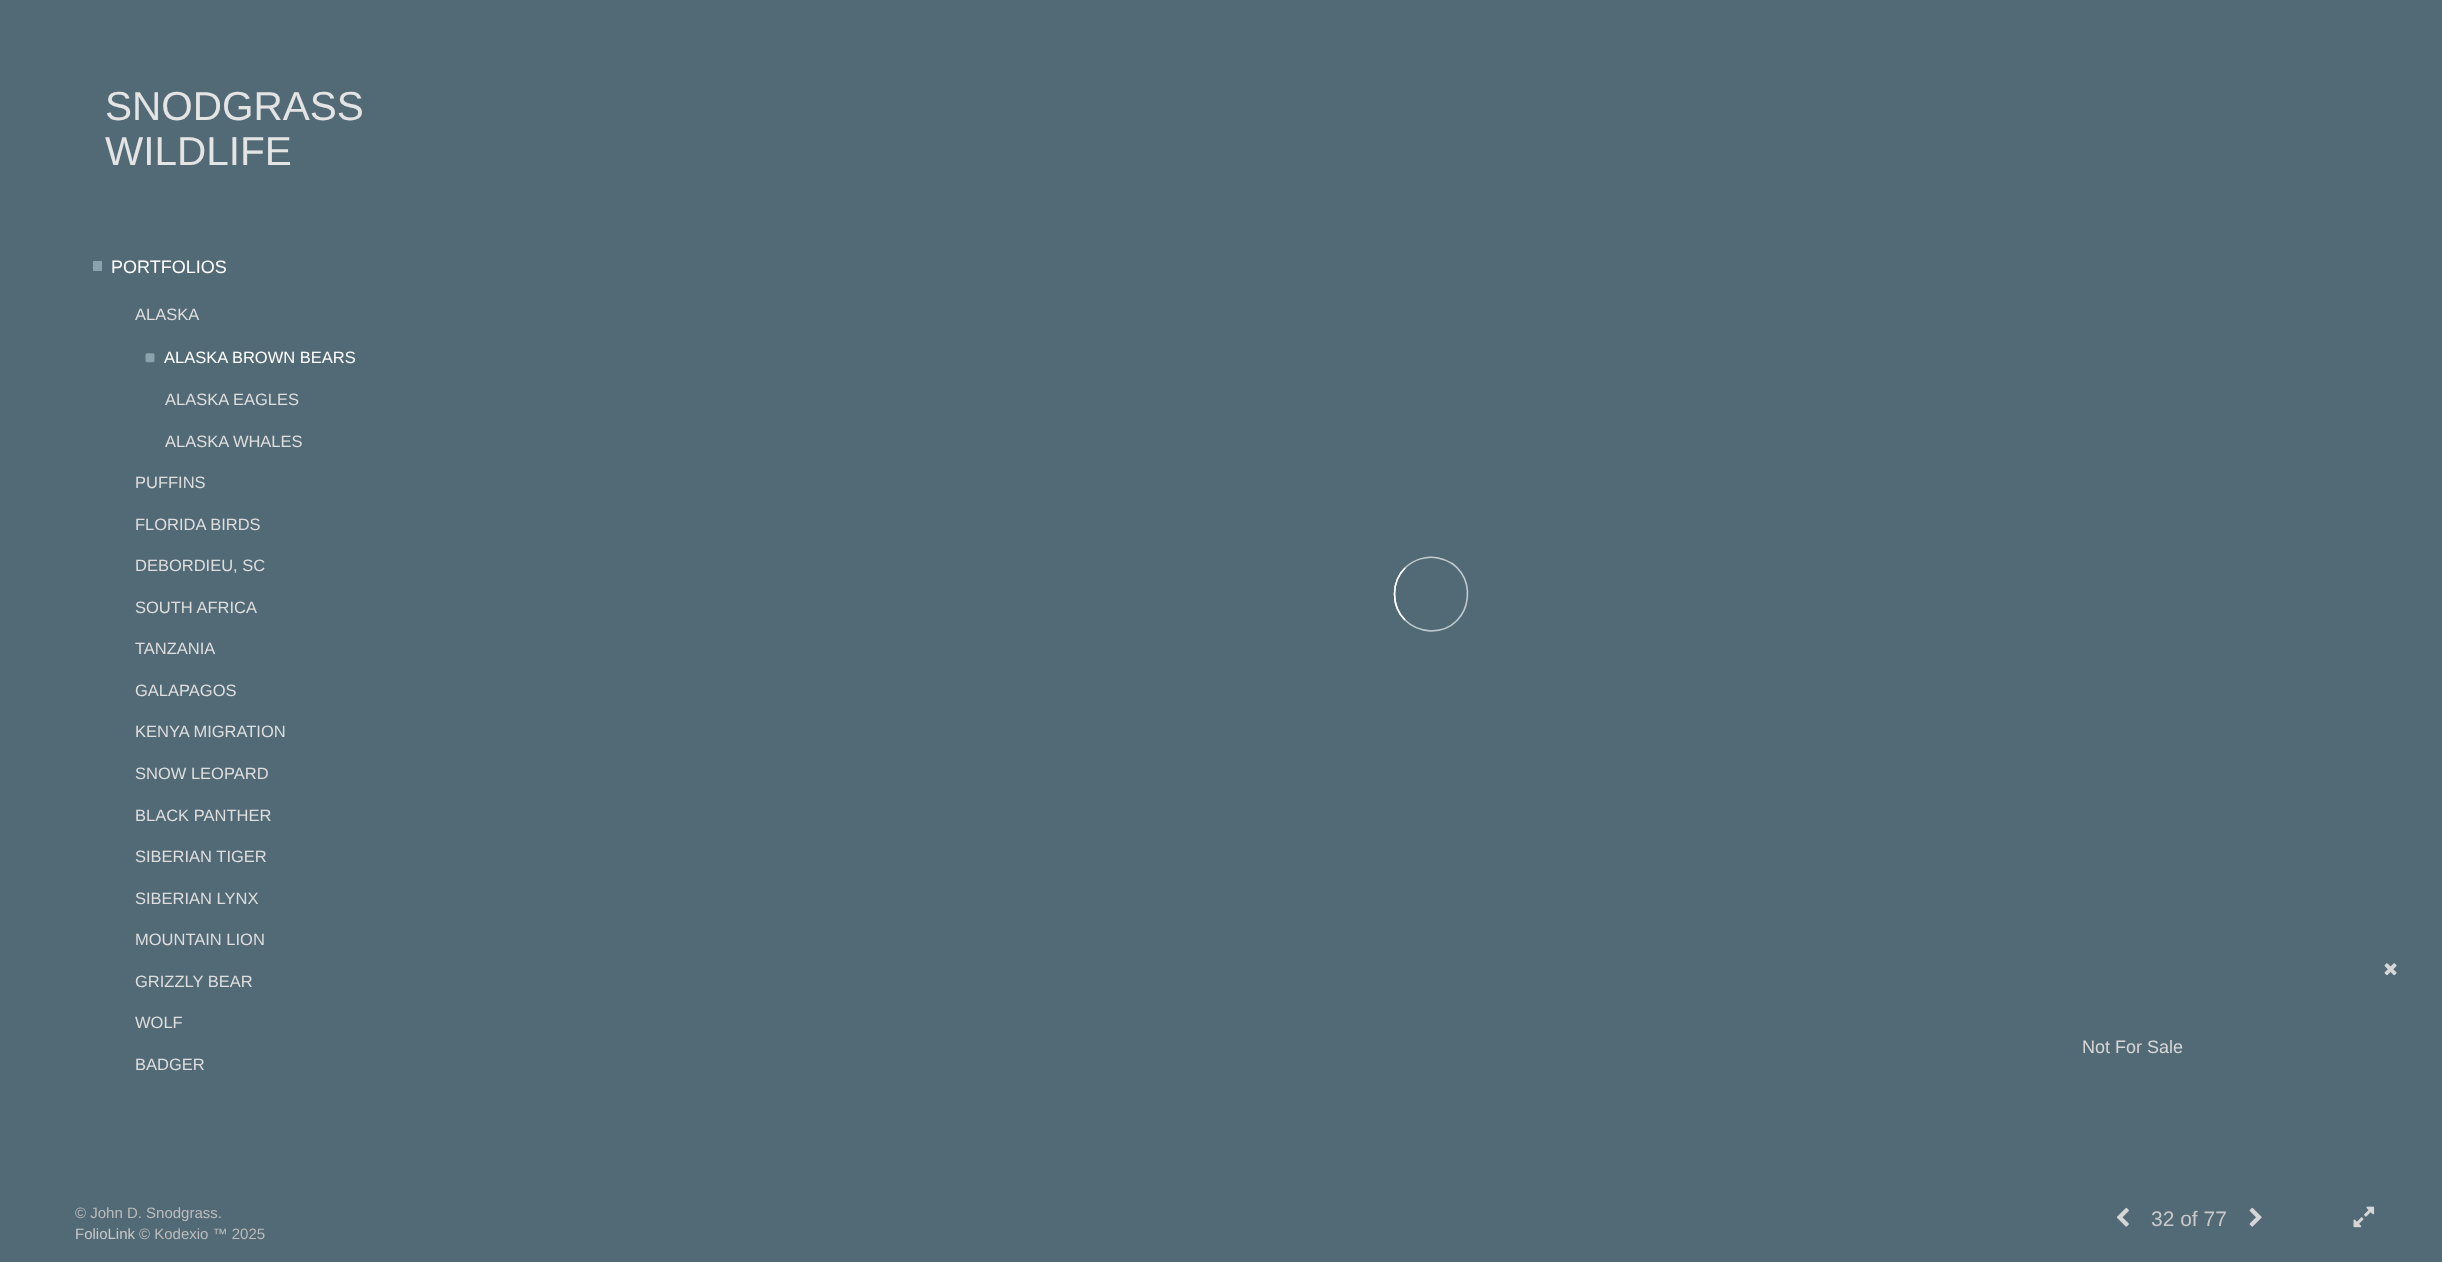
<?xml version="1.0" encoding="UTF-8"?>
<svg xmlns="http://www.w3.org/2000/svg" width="2442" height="1262">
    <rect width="100%" height="100%" fill="#526A76"/>
    <text font-family="Liberation Sans" font-size="40.5" fill="#E4E4E4">
        <tspan x="105" y="120">SNODGRASS</tspan>
        <tspan x="105" y="165">WILDLIFE</tspan>
    </text>
    <rect x="93" y="261" width="9" height="10" fill="#8AA2AB"/>
    <text x="111" y="273" font-family="Liberation Sans" font-size="18" fill="#FFFFFF">PORTFOLIOS</text>
    <text x="135" y="320" font-family="Liberation Sans" font-size="16.5" fill="#DEDEDE">ALASKA</text>
    <image x="145" y="353" width="10" height="10" href="img_01.png"/>
    <text x="164" y="363" font-family="Liberation Sans" font-size="16.5" fill="#FFFFFF">ALASKA BROWN BEARS</text>
    <text x="165" y="405" font-family="Liberation Sans" font-size="16.5" fill="#DEDEDE">ALASKA EAGLES</text>
    <text x="165" y="447" font-family="Liberation Sans" font-size="16.5" fill="#DEDEDE">ALASKA WHALES</text>
    <text x="135" y="488" font-family="Liberation Sans" font-size="16.5" fill="#DEDEDE">PUFFINS</text>
    <text x="135" y="530" font-family="Liberation Sans" font-size="16.5" fill="#DEDEDE">FLORIDA BIRDS</text>
    <text x="135" y="571" font-family="Liberation Sans" font-size="16.5" fill="#DEDEDE">DEBORDIEU, SC</text>
    <text x="135" y="613" font-family="Liberation Sans" font-size="16.5" fill="#DEDEDE">SOUTH AFRICA</text>
    <text x="135" y="654" font-family="Liberation Sans" font-size="16.5" fill="#DEDEDE">TANZANIA</text>
    <text x="135" y="696" font-family="Liberation Sans" font-size="16.5" fill="#DEDEDE">GALAPAGOS</text>
    <text x="135" y="737" font-family="Liberation Sans" font-size="16.5" fill="#DEDEDE">KENYA MIGRATION</text>
    <text x="135" y="779" font-family="Liberation Sans" font-size="16.5" fill="#DEDEDE">SNOW LEOPARD</text>
    <text x="135" y="821" font-family="Liberation Sans" font-size="16.5" fill="#DEDEDE">BLACK PANTHER</text>
    <text x="135" y="862" font-family="Liberation Sans" font-size="16.5" fill="#DEDEDE">SIBERIAN TIGER</text>
    <text x="135" y="904" font-family="Liberation Sans" font-size="16.5" fill="#DEDEDE">SIBERIAN LYNX</text>
    <text x="135" y="945" font-family="Liberation Sans" font-size="16.5" fill="#DEDEDE">MOUNTAIN LION</text>
    <text x="135" y="987" font-family="Liberation Sans" font-size="16.5" fill="#DEDEDE">GRIZZLY BEAR</text>
    <text x="135" y="1028" font-family="Liberation Sans" font-size="16.5" fill="#DEDEDE">WOLF</text>
    <text x="135" y="1070" font-family="Liberation Sans" font-size="16.5" fill="#DEDEDE">BADGER</text>
    <image x="2384" y="963" width="13" height="13" href="img_02.png"/>
    <text x="2082" y="1053" font-family="Liberation Sans" font-size="18" fill="#D7D7D7">Not For Sale</text>
    <path d="M 1405 568 C 1413.5 559.5 1426.5 555.5 1438 558 C 1481.5 566.5 1475 631 1431 631 C 1421.5 630.5 1412 627 1405 620" fill="none" stroke="#97A6AD" stroke-width="1.5"/>
    <path d="M 1405 620 C 1391 606 1391 582 1405 568" fill="none" stroke="#FFFFFF" stroke-width="1.5"/>
    <path d="M 1405 568 C 1413.5 559.5 1426.5 555.5 1438 558 C 1481.5 566.5 1475 631 1431 631 C 1421.5 630.5 1412 627 1405 620" fill="none" stroke="#FFFFFF" stroke-opacity="0.4" stroke-width="1.5"/>
    <path d="M 1405 620 C 1391 606 1391 582 1405 568" fill="none" stroke="#FFFFFF" stroke-width="1.5"/>
    <text x="75" y="1218" font-family="Liberation Sans" font-size="15" fill="#BCBCBC">© John D. Snodgrass.</text>
    <text x="75" y="1239" font-family="Liberation Sans" font-size="15" fill="#C9C9C9">FolioLink</text>
    <text x="139" y="1239" font-family="Liberation Sans" font-size="15" fill="#BCBCBC">© Kodexio ™ 2025</text>
    <image x="2116" y="1207" width="13" height="20" href="img_03.png"/>
    <text x="2151" y="1226" font-family="Liberation Sans" font-size="21" fill="#C9C9C9">32 of 77</text>
    <image x="2249" y="1207" width="13" height="20" href="img_04.png"/>
    <image x="2353" y="1206" width="22" height="22" href="img_05.png"/>
</svg>
